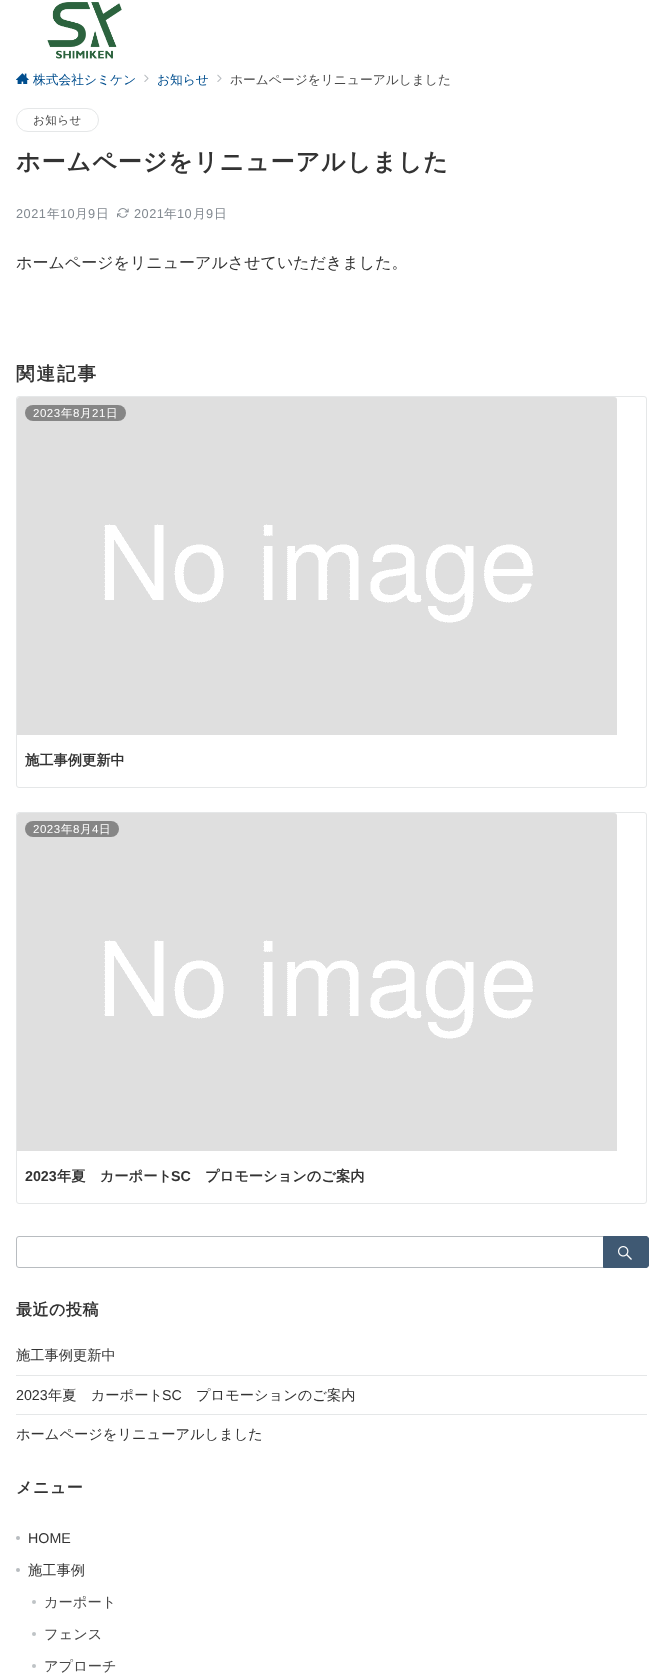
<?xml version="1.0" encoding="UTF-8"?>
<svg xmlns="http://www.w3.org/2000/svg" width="663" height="1679">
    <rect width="100%" height="100%" fill="#FFFFFF"/>
    <image x="47" y="2" width="75" height="57" href="img_01.png"/>
    <image x="16" y="73" width="13" height="11" href="img_02.png"/>
    <text x="33" y="84" font-family="WenQuanYi Zen Hei" font-size="12.75" font-weight="500" fill="#004E8E">株式会社シミケン</text>
    <image x="144" y="74" width="5" height="8" href="img_03.png"/>
    <text x="157" y="84" font-family="WenQuanYi Zen Hei" font-size="12.75" font-weight="500" fill="#004E8E">お知らせ</text>
    <image x="217" y="74" width="5" height="8" href="img_03.png"/>
    <text x="230" y="84" font-family="WenQuanYi Zen Hei" font-size="12.75" font-weight="500" fill="#484848">ホームページをリニューアルしました</text>
    <rect x="16.5" y="108.5" width="82" height="23" rx="11.5" fill="none" stroke="#E5E7E8"/>
    <text x="33" y="124" font-family="WenQuanYi Zen Hei" font-size="11.5" font-weight="500" letter-spacing="0.5" fill="#484848">お知らせ</text>
    <text x="16" y="170" font-family="WenQuanYi Zen Hei" font-size="24" font-weight="700" letter-spacing="1" fill="#333333">ホームページをリニューアルしました</text>
    <text x="16" y="218" font-family="Liberation Sans" font-size="12.75" letter-spacing="0.5" fill="#828990">2021</text>
    <text x="47" y="218" font-family="WenQuanYi Zen Hei" font-size="12.75" font-weight="500" letter-spacing="0.5" fill="#828990">年</text>
    <text x="60" y="218" font-family="Liberation Sans" font-size="12.75" letter-spacing="0.5" fill="#828990">10</text>
    <text x="75" y="218" font-family="WenQuanYi Zen Hei" font-size="12.75" font-weight="500" letter-spacing="0.5" fill="#828990">月</text>
    <text x="88" y="218" font-family="Liberation Sans" font-size="12.75" letter-spacing="0.5" fill="#828990">9</text>
    <text x="96" y="218" font-family="WenQuanYi Zen Hei" font-size="12.75" font-weight="500" letter-spacing="0.5" fill="#828990">日</text>
    <image x="117" y="208" width="12" height="10" href="img_04.png"/>
    <text x="134" y="218" font-family="Liberation Sans" font-size="12.75" letter-spacing="0.5" fill="#828990">2021</text>
    <text x="164" y="218" font-family="WenQuanYi Zen Hei" font-size="12.75" font-weight="500" letter-spacing="0.5" fill="#828990">年</text>
    <text x="177" y="218" font-family="Liberation Sans" font-size="12.75" letter-spacing="0.5" fill="#828990">10</text>
    <text x="193" y="218" font-family="WenQuanYi Zen Hei" font-size="12.75" font-weight="500" letter-spacing="0.5" fill="#828990">月</text>
    <text x="206" y="218" font-family="Liberation Sans" font-size="12.75" letter-spacing="0.5" fill="#828990">9</text>
    <text x="214" y="218" font-family="WenQuanYi Zen Hei" font-size="12.75" font-weight="500" letter-spacing="0.5" fill="#828990">日</text>
    <text x="16" y="268" font-family="WenQuanYi Zen Hei" font-size="16" font-weight="500" fill="#333333">ホームページをリニューアルさせていただきました。</text>
    <text x="16" y="380" font-family="WenQuanYi Zen Hei" font-size="18.5" font-weight="700" letter-spacing="2" fill="#333333">関連記事</text>
    <rect x="16.5" y="396.5" width="630" height="391" rx="2.5" fill="none" stroke="#E5E7E8"/>
    <image x="17" y="397" width="600" height="338" href="img_05.png"/>
    <rect x="25" y="405" width="101" height="16" rx="8" fill="#868686"/>
    <text x="33" y="417" font-family="Liberation Sans" font-size="11.5" letter-spacing="0.5" fill="#FFFFFF">2023</text>
    <text x="61" y="417" font-family="WenQuanYi Zen Hei" font-size="11.5" font-weight="500" letter-spacing="0.5" fill="#FFFFFF">年</text>
    <text x="73" y="417" font-family="Liberation Sans" font-size="11.5" letter-spacing="0.5" fill="#FFFFFF">8</text>
    <text x="80" y="417" font-family="WenQuanYi Zen Hei" font-size="11.5" font-weight="500" letter-spacing="0.5" fill="#FFFFFF">月</text>
    <text x="92" y="417" font-family="Liberation Sans" font-size="11.5" letter-spacing="0.5" fill="#FFFFFF">21</text>
    <text x="106" y="417" font-family="WenQuanYi Zen Hei" font-size="11.5" font-weight="500" letter-spacing="0.5" fill="#FFFFFF">日</text>
    <text x="25" y="765" font-family="WenQuanYi Zen Hei" font-size="14.25" font-weight="700" fill="#333333">施工事例更新中</text>
    <rect x="16.5" y="812.5" width="630" height="391" rx="2.5" fill="none" stroke="#E5E7E8"/>
    <image x="17" y="813" width="600" height="338" href="img_05.png"/>
    <rect x="25" y="821" width="94" height="16" rx="8" fill="#868686"/>
    <text x="33" y="833" font-family="Liberation Sans" font-size="11.5" letter-spacing="0.5" fill="#FFFFFF">2023</text>
    <text x="61" y="833" font-family="WenQuanYi Zen Hei" font-size="11.5" font-weight="500" letter-spacing="0.5" fill="#FFFFFF">年</text>
    <text x="73" y="833" font-family="Liberation Sans" font-size="11.5" letter-spacing="0.5" fill="#FFFFFF">8</text>
    <text x="80" y="833" font-family="WenQuanYi Zen Hei" font-size="11.5" font-weight="500" letter-spacing="0.5" fill="#FFFFFF">月</text>
    <text x="92" y="833" font-family="Liberation Sans" font-size="11.5" letter-spacing="0.5" fill="#FFFFFF">4</text>
    <text x="99" y="833" font-family="WenQuanYi Zen Hei" font-size="11.5" font-weight="500" letter-spacing="0.5" fill="#FFFFFF">日</text>
    <text x="25" y="1181" font-family="Liberation Sans" font-size="14.25" font-weight="700" fill="#333333">2023</text>
    <text x="57" y="1181" font-family="WenQuanYi Zen Hei" font-size="14.25" font-weight="700" fill="#333333">年夏　カーポート</text>
    <text x="171" y="1181" font-family="Liberation Sans" font-size="14.25" font-weight="700" fill="#333333">SC</text>
    <text x="205" y="1181" font-family="WenQuanYi Zen Hei" font-size="14.25" font-weight="700" fill="#333333">プロモーションのご案内</text>
    <rect x="16.5" y="1236.5" width="630" height="31" rx="2.5" fill="none" stroke="#B8BCC0"/>
    <path d="M 603.5 1236.5 H 646 C 647.5 1236.5 648.5 1237.5 648.5 1239 V 1265 C 648.5 1266.5 647.5 1267.5 646 1267.5 H 603.5 Z" fill="#3F5973" stroke="#3F5973"/>
    <image x="618" y="1246" width="14" height="14" href="img_06.png"/>
    <text x="16" y="1315" font-family="WenQuanYi Zen Hei" font-size="16" font-weight="700" letter-spacing="0.5" fill="#333333">最近の投稿</text>
    <rect x="16" y="1375" width="631" height="1" fill="#E5E7E8"/>
    <text x="16" y="1360" font-family="WenQuanYi Zen Hei" font-size="14.25" font-weight="500" fill="#333333">施工事例更新中</text>
    <rect x="16" y="1414" width="631" height="1" fill="#E5E7E8"/>
    <text x="16" y="1400" font-family="Liberation Sans" font-size="14.25" fill="#333333">2023</text>
    <text x="48" y="1400" font-family="WenQuanYi Zen Hei" font-size="14.25" font-weight="500" fill="#333333">年夏　カーポート</text>
    <text x="162" y="1400" font-family="Liberation Sans" font-size="14.25" fill="#333333">SC</text>
    <text x="196" y="1400" font-family="WenQuanYi Zen Hei" font-size="14.25" font-weight="500" fill="#333333">プロモーションのご案内</text>
    <text x="16" y="1439" font-family="WenQuanYi Zen Hei" font-size="14.25" font-weight="500" fill="#333333">ホームページをリニューアルしました</text>
    <text x="16" y="1493" font-family="WenQuanYi Zen Hei" font-size="16" font-weight="700" letter-spacing="0.5" fill="#333333">メニュー</text>
    <circle cx="18" cy="1538" r="2" fill="#B8BCC0"/>
    <text x="28" y="1543" font-family="Liberation Sans" font-size="14.25" fill="#333333">HOME</text>
    <circle cx="18" cy="1570" r="2" fill="#B8BCC0"/>
    <text x="28" y="1575" font-family="WenQuanYi Zen Hei" font-size="14.25" font-weight="500" fill="#333333">施工事例</text>
    <circle cx="34" cy="1602" r="2" fill="#BFC3C6"/>
    <text x="44" y="1607" font-family="WenQuanYi Zen Hei" font-size="14.25" font-weight="500" fill="#484848">カーポート</text>
    <circle cx="34" cy="1634" r="2" fill="#BFC3C6"/>
    <text x="44" y="1639" font-family="WenQuanYi Zen Hei" font-size="14.25" font-weight="500" fill="#484848">フェンス</text>
    <circle cx="34" cy="1666" r="2" fill="#BFC3C6"/>
    <text x="44" y="1671" font-family="WenQuanYi Zen Hei" font-size="14.25" font-weight="500" fill="#484848">アプローチ</text>
</svg>
